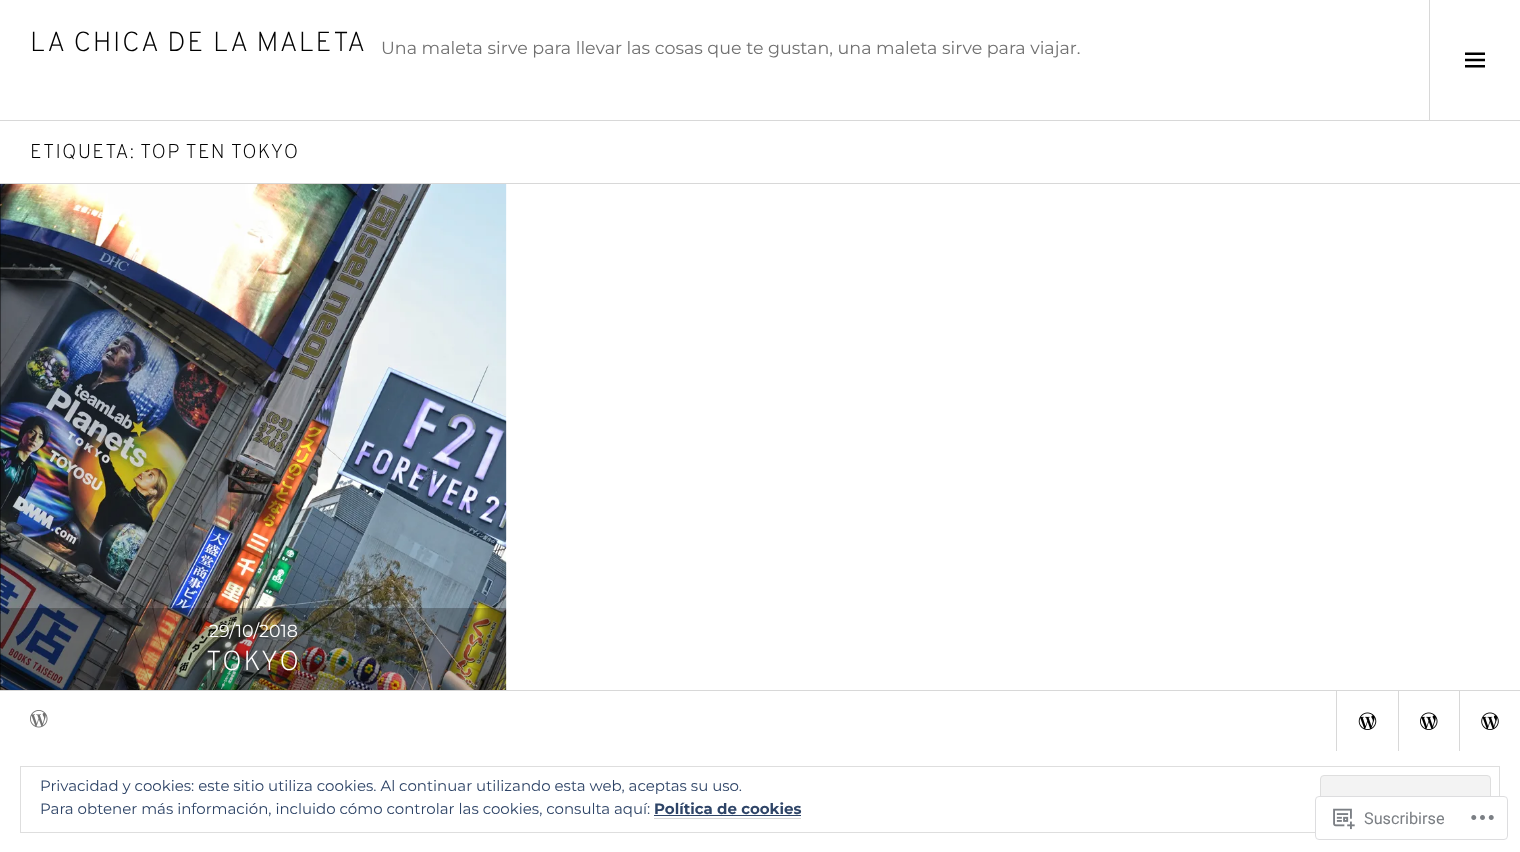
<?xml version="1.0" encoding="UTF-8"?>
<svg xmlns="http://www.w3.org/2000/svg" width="1520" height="852">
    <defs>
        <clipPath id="clip1"><rect x="0" y="691" width="1520" height="60"/></clipPath>
    </defs>
    <rect width="100%" height="100%" fill="#FFFFFF"/>
    <rect x="0" y="120" width="1520" height="1" fill="#D8D8D8"/>
    <text x="30" y="51" font-family="Overpass" font-size="27.5" font-weight="200" letter-spacing="1.75" fill="#000000">LA CHICA DE LA MALETA</text>
    <text x="381" y="54" font-family="Montserrat" font-size="17.5" fill="#707070">Una maleta sirve para llevar las cosas que te gustan, una maleta sirve para viajar.</text>
    <rect x="1429" y="0" width="1" height="120" fill="#D8D8D8"/>
    <image x="1465" y="52" width="20" height="16" href="img_01.png"/>
    <rect x="0" y="183" width="1520" height="1" fill="#D8D8D8"/>
    <text x="30" y="158" font-family="Overpass" font-size="20" font-weight="200" letter-spacing="1.25" fill="#000000">ETIQUETA:</text>
    <text x="140" y="158" font-family="Overpass" font-size="20" font-weight="200" letter-spacing="1.25" fill="#000000">TOP TEN TOKYO</text>
    <rect x="0" y="184" width="1" height="506" fill="#000000"/>
    <image x="0" y="184" width="507" height="506" href="img_02.png"/>
    <rect x="0" y="608" width="506" height="82" fill="#000000" fill-opacity="0.25"/>
    <text x="209" y="637" font-family="Montserrat" font-size="17.5" fill="#FFFFFF">29/10/2018</text>
    <text x="206" y="670" font-family="Overpass" font-size="27.5" font-weight="200" letter-spacing="1.75" fill="#FFFFFF">TOKYO</text>
    <rect x="0" y="690" width="1520" height="1" fill="#D8D8D8"/>
    <image x="30" y="710" width="18" height="18" href="img_03.png"/>
    <g clip-path="url(#clip1)">
        <rect x="1336.5" y="690.5" width="62" height="62" fill="none" stroke="#D8D8D8"/>
    </g>
    <image x="1358" y="712" width="19" height="18" href="img_04.png"/>
    <g clip-path="url(#clip1)">
        <rect x="1398.5" y="690.5" width="61" height="62" fill="none" stroke="#D8D8D8"/>
    </g>
    <image x="1420" y="712" width="18" height="18" href="img_05.png"/>
    <image x="1481" y="712" width="18" height="18" href="img_06.png"/>
    <rect x="20.5" y="766.5" width="1479" height="66" fill="none" stroke="#DEDEDE"/>
    <text x="40" y="791" font-family="Montserrat" font-size="15" fill="#2E4467">Privacidad y cookies: este sitio utiliza cookies. Al continuar utilizando esta web, aceptas su uso.</text>
    <rect x="1320.5" y="775.5" width="170" height="48" rx="3.5" fill="#F3F3F3" stroke="#DEDEDE"/>
    <text x="40" y="814" font-family="Montserrat" font-size="15" fill="#2E4467">Para obtener más información, incluido cómo controlar las cookies, consulta aquí:</text>
    <text x="654" y="814" font-family="Montserrat" font-size="15" font-weight="700" fill="#2E4467">Política de cookies</text>
    <rect x="654" y="818" width="147" height="1" fill="#D8D8D8"/>
    <rect x="654" y="815" width="147" height="1" fill="#2E4467"/>
    <rect x="1315" y="796" width="193" height="44" rx="4" fill="#FFFFFF" fill-opacity="0.98"/>
    <rect x="1315.5" y="796.5" width="192" height="43" rx="3.5" fill="none" stroke="#DCDCDE" stroke-opacity="0.98"/>
    <image x="1333" y="808" width="22" height="22" href="img_07.png"/>
    <text x="1364" y="824" font-family="Roboto" font-size="16.25" fill="#7B7F84">Suscribirse</text>
    <image x="1471" y="815" width="23" height="5" href="img_08.png"/>
</svg>
